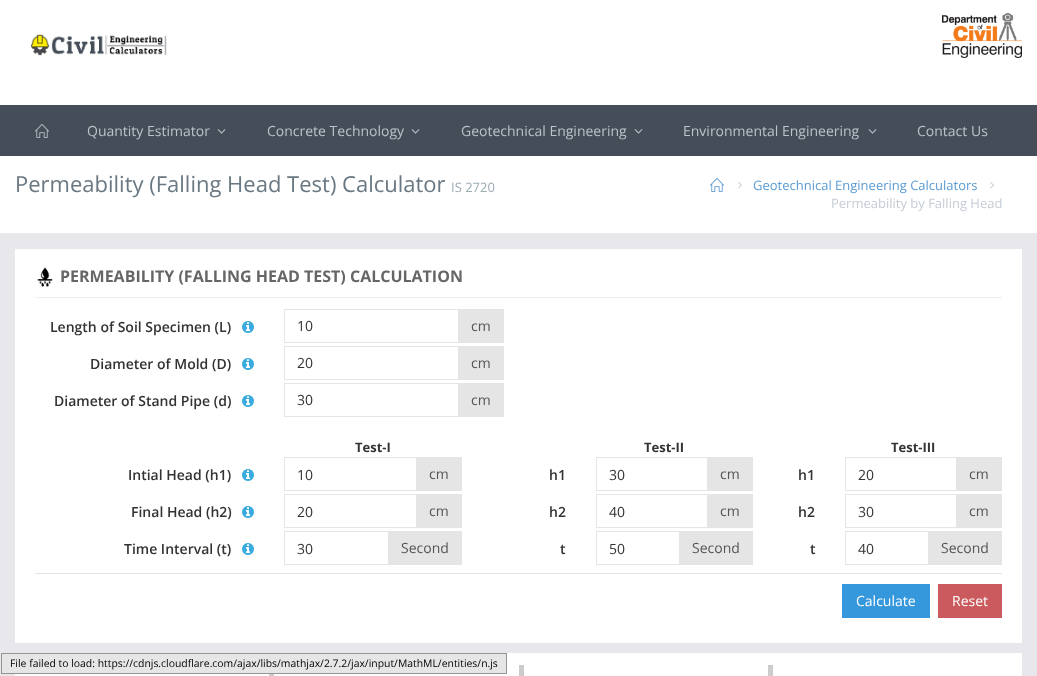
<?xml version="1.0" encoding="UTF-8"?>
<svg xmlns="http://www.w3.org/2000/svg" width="1037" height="676">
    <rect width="100%" height="100%" fill="#FFFFFF"/>
    <image x="31" y="34" width="136" height="22" href="img_01.png"/>
    <image x="942" y="13" width="80" height="45" href="img_02.png"/>
    <rect x="0" y="105" width="1037" height="51" fill="#444D58"/>
    <image x="35" y="124" width="14" height="14" href="img_03.png"/>
    <text x="87" y="136" font-family="Open Sans" font-size="14" fill="#BCC2CB">Quantity Estimator</text>
    <image x="217" y="129" width="9" height="5" href="img_04.png"/>
    <text x="267" y="136" font-family="Open Sans" font-size="14" fill="#BCC2CB">Concrete Technology</text>
    <image x="411" y="129" width="9" height="5" href="img_04.png"/>
    <text x="461" y="136" font-family="Open Sans" font-size="14" fill="#BCC2CB">Geotechnical Engineering</text>
    <image x="634" y="129" width="9" height="5" href="img_04.png"/>
    <text x="683" y="136" font-family="Open Sans" font-size="14" fill="#BCC2CB">Environmental Engineering</text>
    <image x="868" y="129" width="9" height="5" href="img_04.png"/>
    <text x="917" y="136" font-family="Open Sans" font-size="14" fill="#BCC2CB">Contact Us</text>
    <text x="15" y="192" font-family="Open Sans" font-size="22" fill="#697882">Permeability (Falling Head Test) Calculator</text>
    <text x="451" y="192" font-family="Open Sans" font-size="13" fill="#9EACB4">IS 2720</text>
    <image x="710" y="178" width="14" height="14" href="img_05.png"/>
    <image x="738" y="182" width="4" height="7" href="img_06.png"/>
    <text x="753" y="190" font-family="Open Sans" font-size="13" fill="#5B9BD1">Geotechnical Engineering Calculators</text>
    <image x="990" y="182" width="4" height="7" href="img_06.png"/>
    <text x="831" y="208" font-family="Open Sans" font-size="13" fill="#C5CCD5">Permeability by Falling Head</text>
    <rect x="0" y="233" width="1037" height="443" fill="#E7E7EC"/>
    <rect x="15" y="249" width="1007" height="394" fill="#FFFFFF"/>
    <rect x="35" y="297" width="967" height="1" fill="#EEEEEE"/>
    <image x="37" y="267" width="16" height="20" href="img_07.png"/>
    <text x="60" y="282" font-family="Open Sans" font-size="16" font-weight="700" fill="#666666">PERMEABILITY (FALLING HEAD TEST) CALCULATION</text>
    <text x="50" y="332" font-family="Open Sans" font-size="14" font-weight="600" fill="#333333">Length of Soil Specimen (L)</text>
    <image x="242" y="321" width="12" height="12" href="img_08.png"/>
    <rect x="284.5" y="309.5" width="174" height="33" fill="none" stroke="#E5E5E5"/>
    <text x="297" y="331" font-family="Open Sans" font-size="14" fill="#333333">10</text>
    <rect x="459" y="309" width="45" height="34" fill="#E5E5E5"/>
    <text x="471" y="331" font-family="Open Sans" font-size="14" fill="#555555">cm</text>
    <text x="90" y="369" font-family="Open Sans" font-size="14" font-weight="600" fill="#333333">Diameter of Mold (D)</text>
    <image x="242" y="358" width="12" height="12" href="img_08.png"/>
    <rect x="284.5" y="346.5" width="174" height="33" fill="none" stroke="#E5E5E5"/>
    <text x="297" y="368" font-family="Open Sans" font-size="14" fill="#333333">20</text>
    <rect x="459" y="346" width="45" height="34" fill="#E5E5E5"/>
    <text x="471" y="368" font-family="Open Sans" font-size="14" fill="#555555">cm</text>
    <text x="54" y="406" font-family="Open Sans" font-size="14" font-weight="600" fill="#333333">Diameter of Stand Pipe (d)</text>
    <image x="242" y="395" width="12" height="12" href="img_08.png"/>
    <rect x="284.5" y="383.5" width="174" height="33" fill="none" stroke="#E5E5E5"/>
    <text x="297" y="405" font-family="Open Sans" font-size="14" fill="#333333">30</text>
    <rect x="459" y="383" width="45" height="34" fill="#E5E5E5"/>
    <text x="471" y="405" font-family="Open Sans" font-size="14" fill="#555555">cm</text>
    <text x="355" y="452" font-family="Open Sans" font-size="13" font-weight="700" fill="#333333">Test-I</text>
    <text x="128" y="480" font-family="Open Sans" font-size="14" font-weight="600" fill="#333333">Intial Head (h1)</text>
    <image x="242" y="469" width="12" height="12" href="img_08.png"/>
    <rect x="284.5" y="457.5" width="132" height="33" fill="none" stroke="#E5E5E5"/>
    <text x="297" y="480" font-family="Open Sans" font-size="14" fill="#333333">10</text>
    <rect x="417" y="457" width="45" height="34" fill="#E5E5E5"/>
    <text x="429" y="479" font-family="Open Sans" font-size="14" fill="#555555">cm</text>
    <text x="131" y="517" font-family="Open Sans" font-size="14" font-weight="600" fill="#333333">Final Head (h2)</text>
    <image x="242" y="506" width="12" height="12" href="img_08.png"/>
    <rect x="284.5" y="494.5" width="132" height="33" fill="none" stroke="#E5E5E5"/>
    <text x="297" y="517" font-family="Open Sans" font-size="14" fill="#333333">20</text>
    <rect x="417" y="494" width="45" height="34" fill="#E5E5E5"/>
    <text x="429" y="516" font-family="Open Sans" font-size="14" fill="#555555">cm</text>
    <text x="124" y="554" font-family="Open Sans" font-size="14" font-weight="600" fill="#333333">Time Interval (t)</text>
    <image x="242" y="543" width="12" height="12" href="img_08.png"/>
    <rect x="284.5" y="531.5" width="104" height="33" fill="none" stroke="#E5E5E5"/>
    <text x="297" y="554" font-family="Open Sans" font-size="14" fill="#333333">30</text>
    <rect x="389" y="531" width="73" height="34" fill="#E5E5E5"/>
    <text x="401" y="553" font-family="Open Sans" font-size="14" fill="#555555">Second</text>
    <text x="644" y="452" font-family="Open Sans" font-size="13" font-weight="700" fill="#333333">Test-II</text>
    <text x="549" y="480" font-family="Open Sans" font-size="14" font-weight="600" fill="#333333">h1</text>
    <rect x="596.5" y="457.5" width="111" height="33" fill="none" stroke="#E5E5E5"/>
    <text x="609" y="480" font-family="Open Sans" font-size="14" fill="#333333">30</text>
    <rect x="708" y="457" width="45" height="34" fill="#E5E5E5"/>
    <text x="720" y="479" font-family="Open Sans" font-size="14" fill="#555555">cm</text>
    <text x="549" y="517" font-family="Open Sans" font-size="14" font-weight="600" fill="#333333">h2</text>
    <rect x="596.5" y="494.5" width="111" height="33" fill="none" stroke="#E5E5E5"/>
    <text x="609" y="517" font-family="Open Sans" font-size="14" fill="#333333">40</text>
    <rect x="708" y="494" width="45" height="34" fill="#E5E5E5"/>
    <text x="720" y="516" font-family="Open Sans" font-size="14" fill="#555555">cm</text>
    <text x="560" y="554" font-family="Open Sans" font-size="14" font-weight="600" fill="#333333">t</text>
    <rect x="596.5" y="531.5" width="83" height="33" fill="none" stroke="#E5E5E5"/>
    <text x="609" y="554" font-family="Open Sans" font-size="14" fill="#333333">50</text>
    <rect x="680" y="531" width="73" height="34" fill="#E5E5E5"/>
    <text x="692" y="553" font-family="Open Sans" font-size="14" fill="#555555">Second</text>
    <text x="891" y="452" font-family="Open Sans" font-size="13" font-weight="700" fill="#333333">Test-III</text>
    <text x="798" y="480" font-family="Open Sans" font-size="14" font-weight="600" fill="#333333">h1</text>
    <rect x="845.5" y="457.5" width="111" height="33" fill="none" stroke="#E5E5E5"/>
    <text x="858" y="480" font-family="Open Sans" font-size="14" fill="#333333">20</text>
    <rect x="957" y="457" width="45" height="34" fill="#E5E5E5"/>
    <text x="969" y="479" font-family="Open Sans" font-size="14" fill="#555555">cm</text>
    <text x="798" y="517" font-family="Open Sans" font-size="14" font-weight="600" fill="#333333">h2</text>
    <rect x="845.5" y="494.5" width="111" height="33" fill="none" stroke="#E5E5E5"/>
    <text x="858" y="517" font-family="Open Sans" font-size="14" fill="#333333">30</text>
    <rect x="957" y="494" width="45" height="34" fill="#E5E5E5"/>
    <text x="969" y="516" font-family="Open Sans" font-size="14" fill="#555555">cm</text>
    <text x="810" y="554" font-family="Open Sans" font-size="14" font-weight="600" fill="#333333">t</text>
    <rect x="845.5" y="531.5" width="83" height="33" fill="none" stroke="#E5E5E5"/>
    <text x="858" y="554" font-family="Open Sans" font-size="14" fill="#333333">40</text>
    <rect x="929" y="531" width="73" height="34" fill="#E5E5E5"/>
    <text x="941" y="553" font-family="Open Sans" font-size="14" fill="#555555">Second</text>
    <rect x="35" y="573" width="967" height="1" fill="#E5E5E5"/>
    <rect x="842" y="584" width="88" height="34" fill="#3598DC"/>
    <text x="856" y="606" font-family="Open Sans" font-size="14" fill="#FFFFFF">Calculate</text>
    <rect x="938" y="584" width="64" height="34" fill="#CB5A5E"/>
    <text x="952" y="606" font-family="Open Sans" font-size="14" fill="#FFFFFF">Reset</text>
    <rect x="15" y="653" width="1007" height="23" fill="#FFFFFF"/>
    <rect x="269" y="674" width="5" height="2" fill="#CCCCCC"/>
    <rect x="519" y="665" width="5" height="11" fill="#CCCCCC"/>
    <rect x="768" y="665" width="5" height="11" fill="#CCCCCC"/>
    <rect x="1.5" y="653.5" width="505" height="20" fill="#E6E6E6" stroke="#959595"/>
    <text x="10" y="667" font-family="Open Sans" font-size="10.4" fill="#000000">File failed to load: https://cdnjs.cloudflare.com/ajax/libs/mathjax/2.7.2/jax/input/MathML/entities/n.js</text>
</svg>
